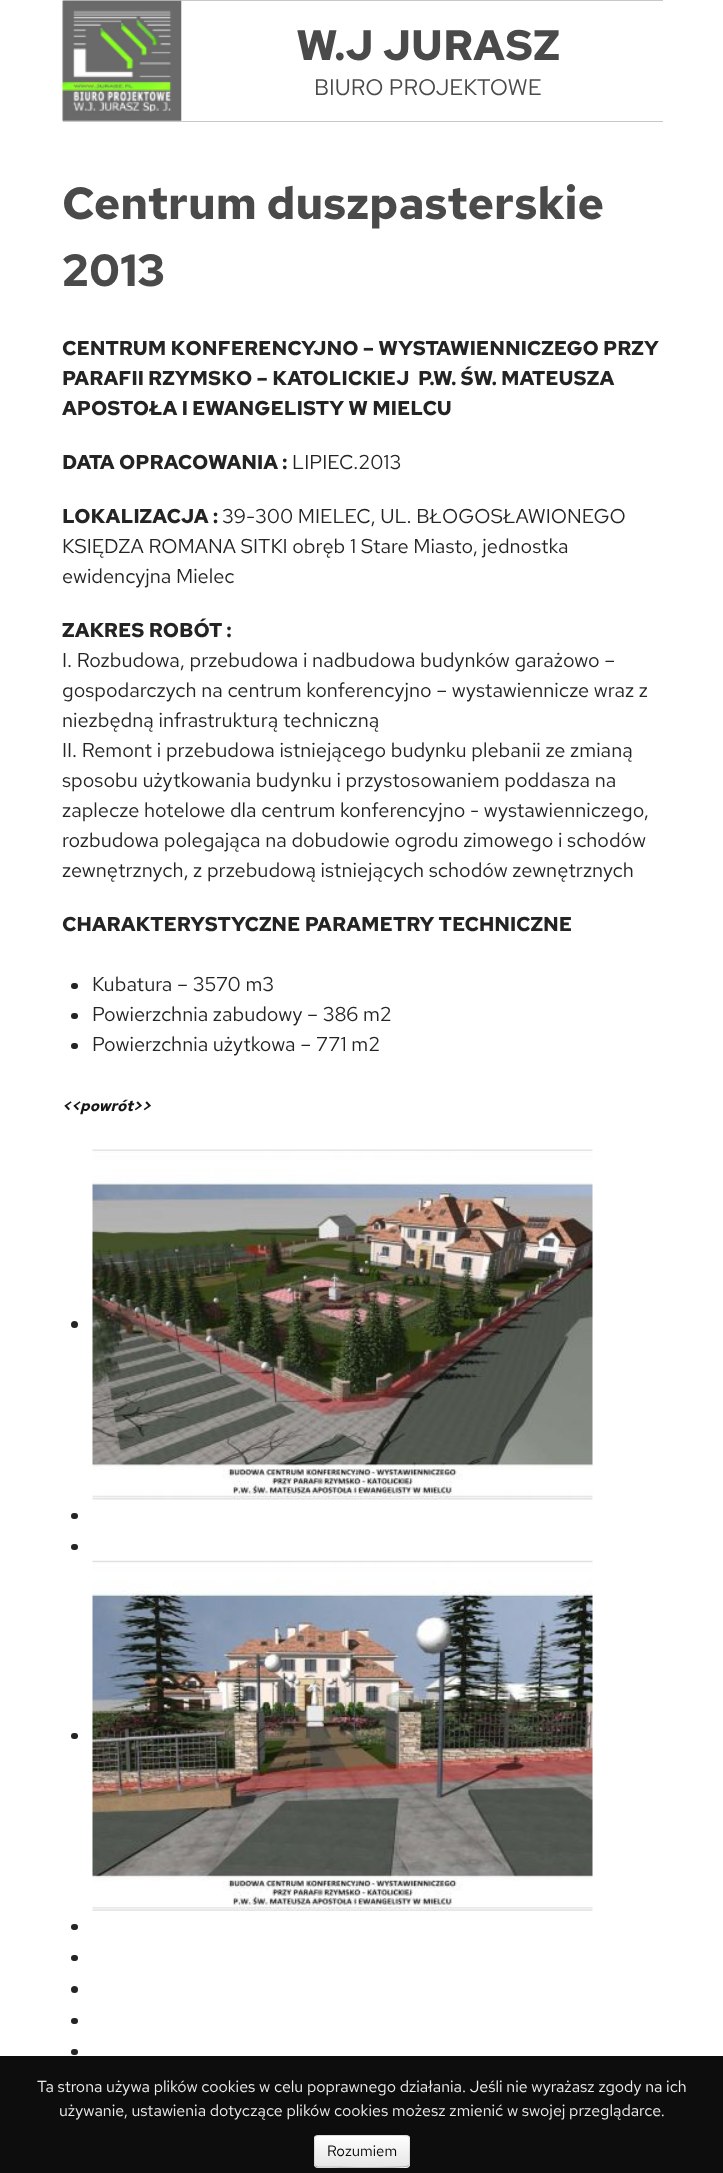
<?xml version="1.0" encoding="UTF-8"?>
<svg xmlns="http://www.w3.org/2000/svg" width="723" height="2173">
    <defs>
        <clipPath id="clip1"><rect x="314" y="2135" width="96" height="33" rx="4"/></clipPath>
        <linearGradient id="g1" gradientUnits="userSpaceOnUse" x1="362" y1="2136" x2="362" y2="2166"><stop offset="0" stop-color="#FFFFFF"/><stop offset="1" stop-color="#E6E6E6"/></linearGradient>
    </defs>
    <rect width="100%" height="100%" fill="#FFFFFF"/>
    <rect x="63" y="0" width="600" height="1" fill="#C8C8C8"/>
    <rect x="63" y="121" width="600" height="1" fill="#C8C8C8"/>
    <image x="62" y="0" width="120" height="121" href="img_01.png"/>
    <text x="296" y="60" font-family="Red Hat Text" font-size="42.5" font-weight="700" fill="#4A4A4A">W.J JURASZ</text>
    <text x="314" y="95" font-family="Red Hat Text" font-size="22.5" fill="#4A4A4A">BIURO PROJEKTOWE</text>
    <text font-family="Red Hat Text" font-size="45" font-weight="700" fill="#4A4A4A">
        <tspan x="62" y="219">Centrum duszpasterskie</tspan>
        <tspan x="62" y="286">2013</tspan>
    </text>
    <text font-family="Red Hat Text" font-size="20" font-weight="700" fill="#242424" xml:space="preserve"><tspan x="62" y="355">CENTRUM KONFERENCYJNO – WYSTAWIENNICZEGO PRZY</tspan><tspan x="62" y="385">PARAFII RZYMSKO – KATOLICKIEJ  P.W. ŚW. MATEUSZA</tspan><tspan x="62" y="415">APOSTOŁA I EWANGELISTY W MIELCU</tspan></text>
    <text x="62" y="469" font-family="Red Hat Text" font-size="20" font-weight="700" fill="#242424">DATA OPRACOWANIA :</text>
    <text x="292" y="469" font-family="Red Hat Text" font-size="20" fill="#242424">LIPIEC.2013</text>
    <text x="62" y="523" font-family="Red Hat Text" font-size="20" font-weight="700" fill="#242424">LOKALIZACJA :</text>
    <text x="222" y="523" font-family="Red Hat Text" font-size="20" fill="#242424">39-300 MIELEC, UL. BŁOGOSŁAWIONEGO</text>
    <text font-family="Red Hat Text" font-size="20" fill="#242424">
        <tspan x="62" y="553">KSIĘDZA ROMANA SITKI obręb 1 Stare Miasto, jednostka</tspan>
        <tspan x="62" y="583">ewidencyjna Mielec</tspan>
    </text>
    <text x="62" y="637" font-family="Red Hat Text" font-size="20" font-weight="700" fill="#242424">ZAKRES ROBÓT :</text>
    <text font-family="Red Hat Text" font-size="20" fill="#242424">
        <tspan x="62" y="667">I. Rozbudowa, przebudowa i nadbudowa budynków garażowo –</tspan>
        <tspan x="62" y="697">gospodarczych na centrum konferencyjno – wystawiennicze wraz z</tspan>
        <tspan x="62" y="727">niezbędną infrastrukturą techniczną</tspan>
        <tspan x="62" y="757">II. Remont i przebudowa istniejącego budynku plebanii ze zmianą</tspan>
        <tspan x="62" y="787">sposobu użytkowania budynku i przystosowaniem poddasza na</tspan>
        <tspan x="62" y="817">zaplecze hotelowe dla centrum konferencyjno - wystawienniczego,</tspan>
        <tspan x="62" y="847">rozbudowa polegająca na dobudowie ogrodu zimowego i schodów</tspan>
        <tspan x="62" y="877">zewnętrznych, z przebudową istniejących schodów zewnętrznych</tspan>
    </text>
    <text x="62" y="931" font-family="Red Hat Text" font-size="20" font-weight="700" fill="#242424">CHARAKTERYSTYCZNE PARAMETRY TECHNICZNE</text>
    <rect x="71" y="983" width="7" height="6" rx="3" fill="#242424"/>
    <text x="92" y="991" font-family="Red Hat Text" font-size="20" fill="#242424">Kubatura – 3570 m3</text>
    <rect x="71" y="1013" width="7" height="6" rx="3" fill="#242424"/>
    <text x="92" y="1021" font-family="Red Hat Text" font-size="20" fill="#242424">Powierzchnia zabudowy – 386 m2</text>
    <rect x="71" y="1043" width="7" height="6" rx="3" fill="#242424"/>
    <text x="92" y="1051" font-family="Red Hat Text" font-size="20" fill="#242424">Powierzchnia użytkowa – 771 m2</text>
    <text x="62" y="1111" font-family="Red Hat Text" font-size="15" font-weight="700" font-style="italic" fill="#171717">&lt;&lt;powrót&gt;&gt;</text>
    <circle cx="74.5" cy="1324.5" r="3.5" fill="#242424"/>
    <image x="92" y="1149" width="501" height="351" href="img_02.png"/>
    <rect x="71" y="1513" width="7" height="6" rx="3" fill="#242424"/>
    <rect x="71" y="1544" width="7" height="6" rx="3" fill="#242424"/>
    <rect x="71" y="1733" width="7" height="6" rx="3" fill="#242424"/>
    <image x="92" y="1560" width="501" height="351" href="img_03.png"/>
    <rect x="71" y="1924" width="7" height="6" rx="3" fill="#242424"/>
    <rect x="71" y="1955" width="7" height="6" rx="3" fill="#242424"/>
    <circle cx="74.5" cy="1989.5" r="3.5" fill="#242424"/>
    <rect x="71" y="2018" width="7" height="6" rx="3" fill="#242424"/>
    <rect x="71" y="2049" width="7" height="6" rx="3" fill="#242424"/>
    <rect x="0" y="2056" width="723" height="117" fill="#0D0D0D"/>
    <text x="37" y="2092" font-family="Red Hat Text" font-size="16" fill="#EDEDED">Ta strona używa plików cookies w celu poprawnego działania. Jeśli nie wyrażasz zgody na ich</text>
    <text x="59" y="2116" font-family="Red Hat Text" font-size="16" fill="#EDEDED">używanie, ustawienia dotyczące plików cookies możesz zmienić w swojej przeglądarce.</text>
    <rect x="314" y="2135" width="96" height="33" rx="4" fill="#F5F5F5"/>
    <g clip-path="url(#clip1)">
        <rect x="314" y="2136" width="96" height="30" fill="url(#g1)"/>
    </g>
    <path d="M 408.5 2166 H 408 C 406 2168 340.5 2167 332.5 2167 H 317.5 L 315.5 2166" fill="none" stroke="#B3B3B3" stroke-width="1.2"/>
    <path d="M 315.5 2166 C 313 2164 314.5 2154 314.5 2151 C 314.5 2132 311.5 2135.5 332.5 2135.5 H 391.5 C 414 2135.5 409.5 2132.5 409.5 2155.5 C 409.5 2158 410.5 2164 408.5 2166" fill="none" stroke="#000000" stroke-opacity="0.1" stroke-width="1.2"/>
    <text x="327" y="2156" font-family="Red Hat Text" font-size="15" fill="#050505">Rozumiem</text>
</svg>
